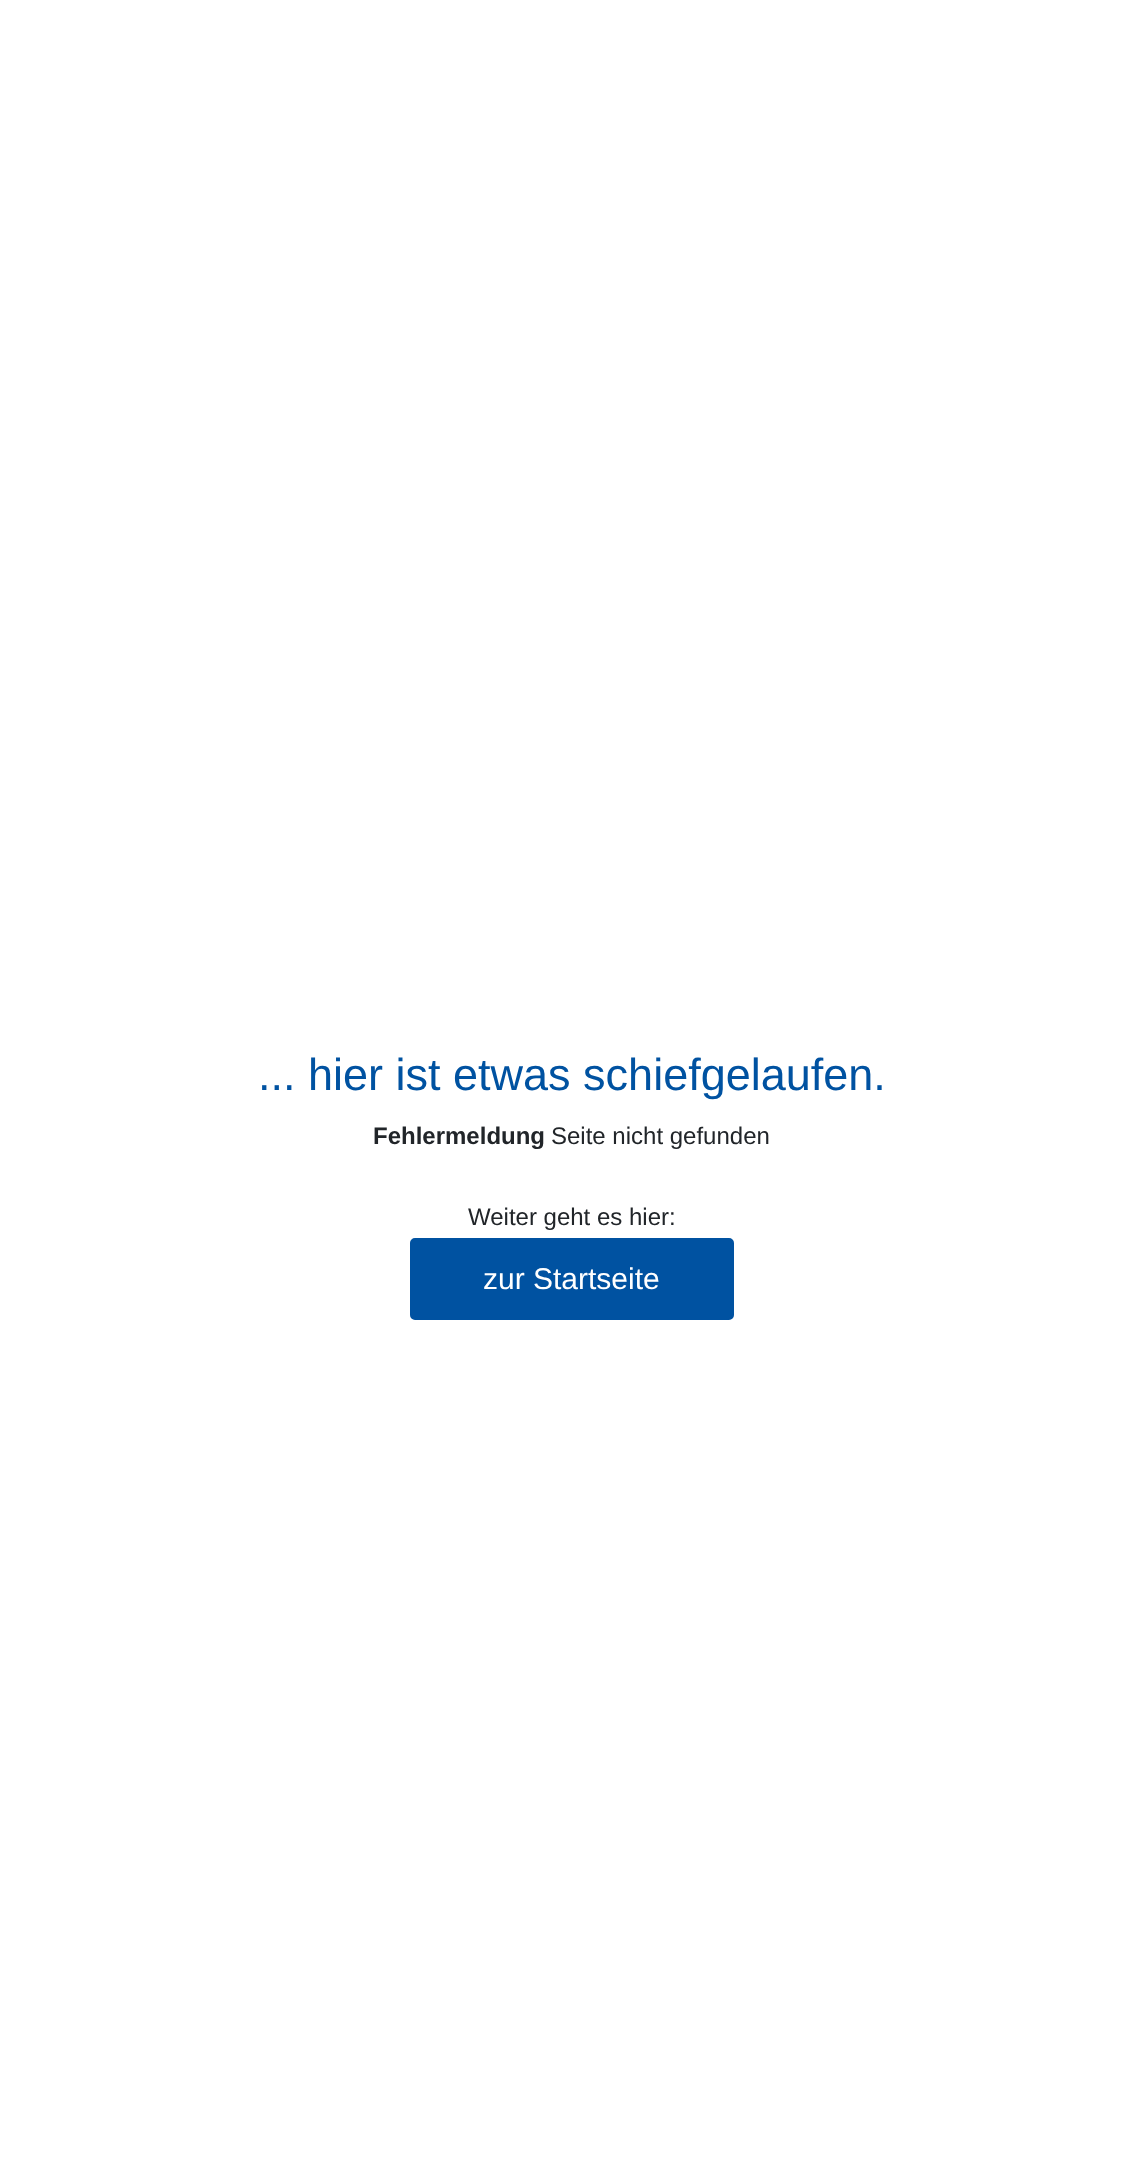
<?xml version="1.0" encoding="UTF-8"?>
<svg xmlns="http://www.w3.org/2000/svg" width="1142" height="2159">
    <rect width="100%" height="100%" fill="#FFFFFF"/>
    <text x="258" y="1090" font-family="Liberation Sans" font-size="45" fill="#0052A1">... hier ist etwas schiefgelaufen.</text>
    <text x="373" y="1144" font-family="Liberation Sans" font-size="24" font-weight="700" fill="#212529">Fehlermeldung</text>
    <text x="551" y="1144" font-family="Liberation Sans" font-size="24" fill="#212529">Seite nicht gefunden</text>
    <text x="468" y="1225" font-family="Liberation Sans" font-size="24" fill="#212529">Weiter geht es hier:</text>
    <rect x="411" y="1239" width="322" height="80" rx="4" fill="#0052A1" stroke="#0052A1" stroke-width="2"/>
    <text x="483" y="1289" font-family="Liberation Sans" font-size="30" fill="#FFFFFF">zur Startseite</text>
</svg>
